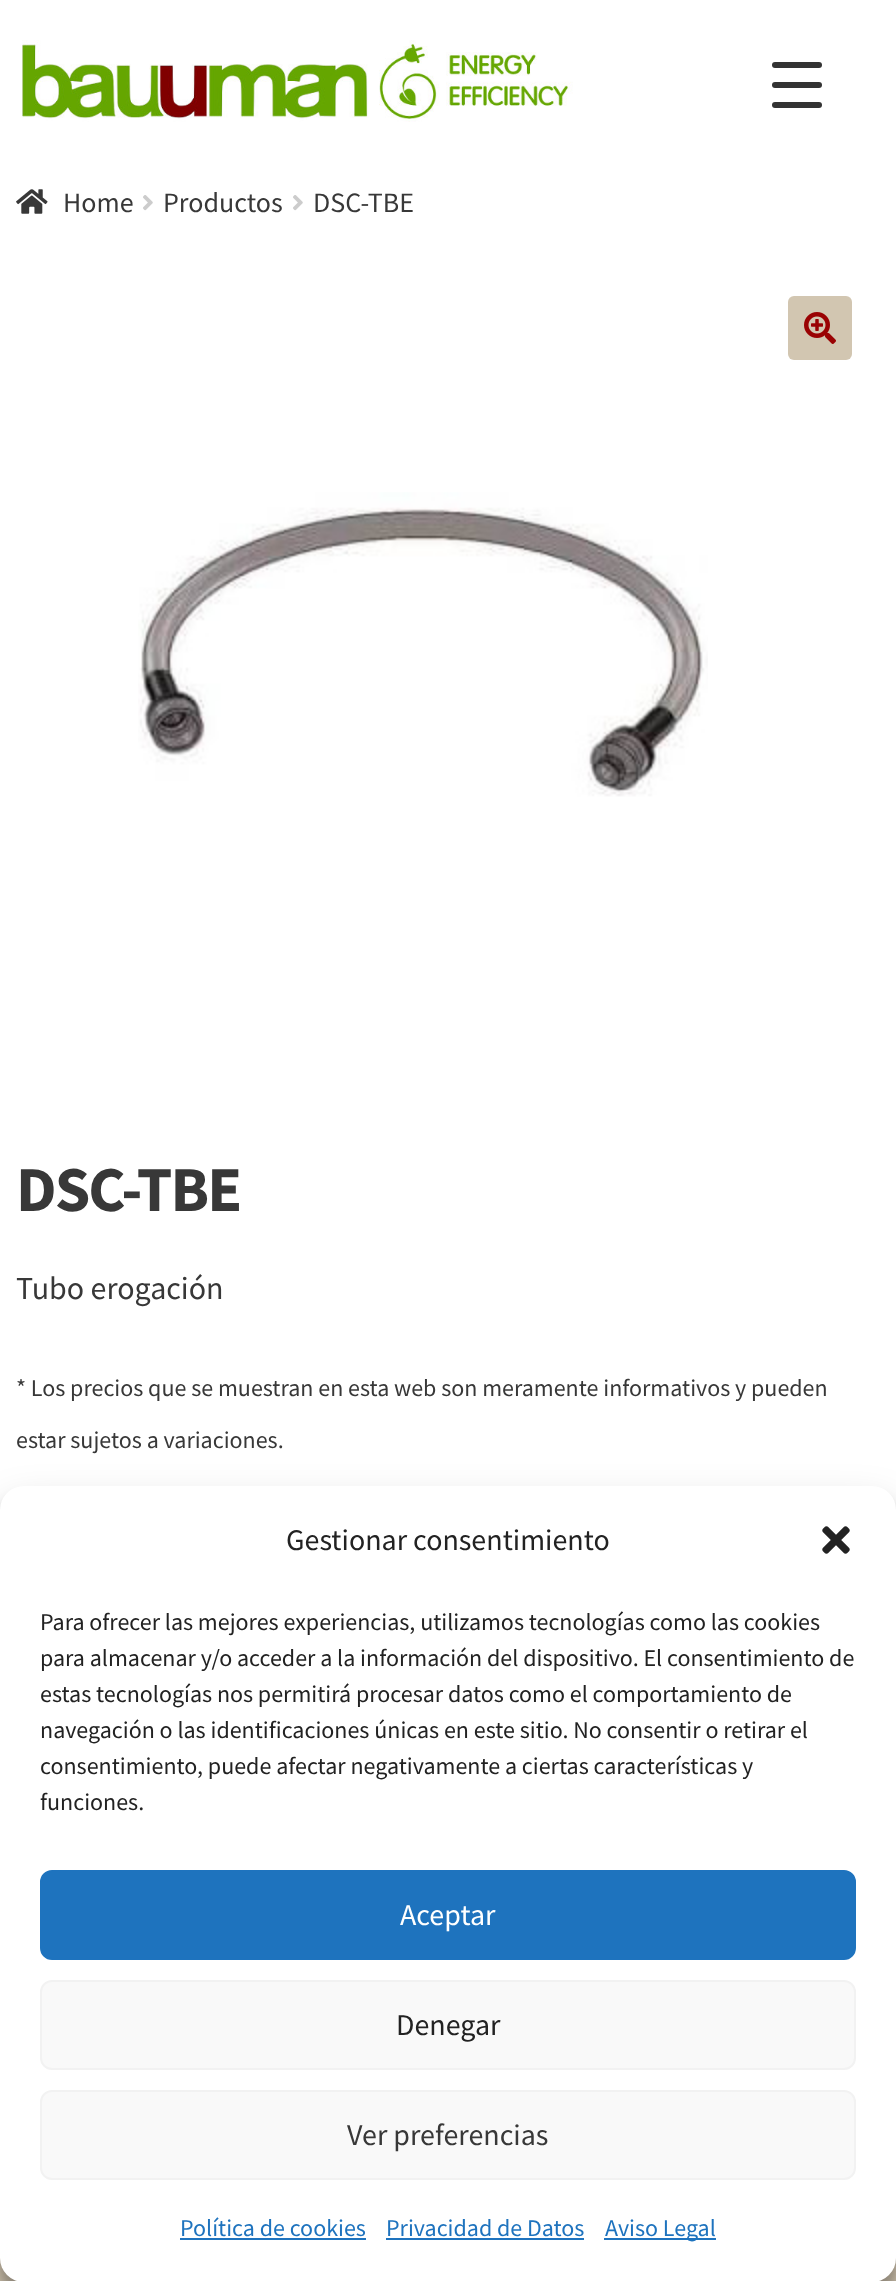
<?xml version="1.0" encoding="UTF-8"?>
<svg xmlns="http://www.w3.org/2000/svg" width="896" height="2281">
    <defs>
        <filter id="blur1" x="-50%" y="-200%" width="200%" height="500%"><feGaussianBlur stdDeviation="6"/></filter>
        <filter id="blur2" x="-50%" y="-200%" width="200%" height="500%"><feGaussianBlur stdDeviation="20"/></filter>
    </defs>
    <rect width="100%" height="100%" fill="#FFFFFF"/>
    <rect x="772" y="82" width="50" height="6" rx="3" fill="#333333"/>
    <rect x="772" y="62" width="50" height="6" rx="3" fill="#333333"/>
    <rect x="772" y="102" width="50" height="6" rx="3" fill="#333333"/>
    <image x="22" y="40" width="551" height="82" href="img_01.png"/>
    <image x="16" y="189" width="32" height="25" href="img_02.png"/>
    <text x="63" y="212" font-family="Source Sans Pro" font-size="28" fill="#383838">Home</text>
    <image x="143" y="195" width="10" height="16" href="img_03.png"/>
    <text x="163" y="212" font-family="Source Sans Pro" font-size="28" fill="#383838">Productos</text>
    <image x="293" y="195" width="10" height="16" href="img_03.png"/>
    <text x="313" y="212" font-family="Source Sans Pro" font-size="28" fill="#383838">DSC-TBE</text>
    <rect x="788" y="296" width="64" height="64" rx="6" fill="#D2C6B1"/>
    <image x="804" y="312" width="32" height="32" href="img_04.png"/>
    <image x="138" y="492" width="570" height="305" href="img_05.png"/>
    <text x="16" y="1211" font-family="Source Sans Pro" font-size="64" font-weight="700" letter-spacing="-2" fill="#383838">DSC-TBE</text>
    <text x="16" y="1299" font-family="Source Sans Pro" font-size="32" fill="#383838">Tubo erogación</text>
    <text x="16" y="1396" font-family="Source Sans Pro" font-size="24" fill="#383838">* Los precios que se muestran en esta web son meramente informativos y pueden</text>
    <text x="16" y="1448" font-family="Source Sans Pro" font-size="24" fill="#383838">estar sujetos a variaciones.</text>
    <rect x="0" y="2258" width="896" height="23" fill="#D2C6B1"/>
    <rect x="0" y="1498" width="896" height="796" rx="24" fill="#000000" fill-opacity="0.23" filter="url(#blur1)"/>
    <rect x="0" y="1506" width="896" height="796" rx="24" fill="#000000" fill-opacity="0.19" filter="url(#blur2)"/>
    <rect x="0" y="1486" width="896" height="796" rx="24" fill="#FFFFFF"/>
    <text x="286" y="1550" font-family="Source Sans Pro" font-size="30" fill="#222222">Gestionar consentimiento</text>
    <image x="822" y="1526" width="28" height="28" href="img_06.png"/>
    <text font-family="Source Sans Pro" font-size="24" fill="#222222">
        <tspan x="40" y="1630">Para ofrecer las mejores experiencias, utilizamos tecnologías como las cookies</tspan>
        <tspan x="40" y="1666">para almacenar y/o acceder a la información del dispositivo. El consentimiento de</tspan>
        <tspan x="40" y="1702">estas tecnologías nos permitirá procesar datos como el comportamiento de</tspan>
        <tspan x="40" y="1738">navegación o las identificaciones únicas en este sitio. No consentir o retirar el</tspan>
        <tspan x="40" y="1774">consentimiento, puede afectar negativamente a ciertas características y</tspan>
        <tspan x="40" y="1810">funciones.</tspan>
    </text>
    <rect x="41" y="1871" width="814" height="88" rx="11" fill="#1E73BE" stroke="#1E73BE" stroke-width="2"/>
    <text x="400" y="1925" font-family="Source Sans Pro" font-size="30" fill="#FFFFFF">Aceptar</text>
    <rect x="41" y="1981" width="814" height="88" rx="11" fill="#F9F9F9" stroke="#F2F2F2" stroke-width="2"/>
    <text x="396" y="2035" font-family="Source Sans Pro" font-size="30" fill="#222222">Denegar</text>
    <rect x="41" y="2091" width="814" height="88" rx="11" fill="#F9F9F9" stroke="#F2F2F2" stroke-width="2"/>
    <text x="347" y="2145" font-family="Source Sans Pro" font-size="30" fill="#383838">Ver preferencias</text>
    <text x="180" y="2236" font-family="Source Sans Pro" font-size="24" fill="#1E73BE">Política de cookies</text>
    <rect x="180" y="2238" width="186" height="2" fill="#1E73BE"/>
    <text x="386" y="2236" font-family="Source Sans Pro" font-size="24" fill="#1E73BE">Privacidad de Datos</text>
    <rect x="386" y="2238" width="198" height="2" fill="#1E73BE"/>
    <rect x="604" y="2238" width="112" height="2" fill="#1E73BE"/>
    <text x="605" y="2236" font-family="Source Sans Pro" font-size="24" fill="#1E73BE">Aviso Legal</text>
</svg>
